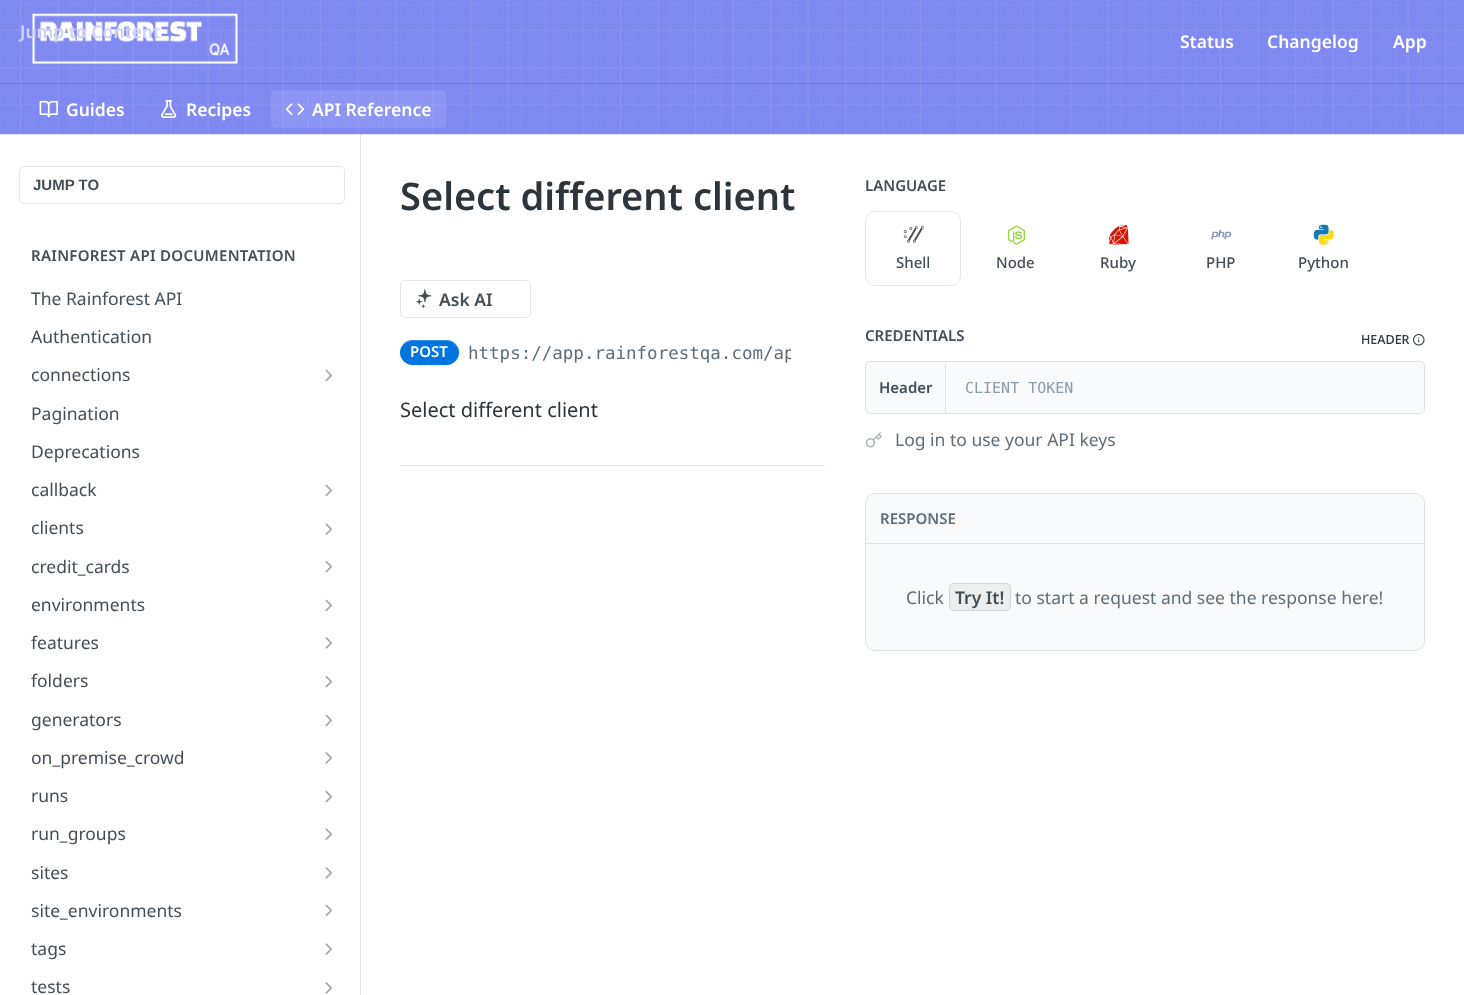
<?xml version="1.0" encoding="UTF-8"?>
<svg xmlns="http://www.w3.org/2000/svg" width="1464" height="995">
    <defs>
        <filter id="blur1" x="-50%" y="-200%" width="200%" height="500%"><feGaussianBlur stdDeviation="1"/></filter>
        <clipPath id="clip1"><rect x="469" y="340" width="322" height="25"/></clipPath>
        <clipPath id="clip2"><rect x="965" y="379" width="414" height="17"/></clipPath>
    </defs>
    <rect width="100%" height="100%" fill="#FFFFFF"/>
    <path d="M 1 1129 H 361 V 134 H 360 V 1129 Z" fill="#E6E6E6"/>
    <rect x="0" y="134" width="1464" height="1" fill="#000000" fill-opacity="0.1"/>
    <rect x="0" y="0" width="1464" height="134" fill="#818AFF"/>
    <image x="0" y="0" width="1464" height="134" href="img_01.png"/>
    <rect x="0" y="83" width="1464" height="1" fill="#000000" fill-opacity="0.1"/>
    <image x="32" y="13" width="206" height="51" href="img_02.png"/>
    <text x="20" y="38" font-family="Noto Sans" font-size="17.5" font-weight="600" fill="#D1D4FA">Jump to Content</text>
    <text x="1180" y="48" font-family="Noto Sans" font-size="17.5" font-weight="600" fill="#FFFFFF">Status</text>
    <text x="1267" y="48" font-family="Noto Sans" font-size="17.5" font-weight="600" fill="#FFFFFF">Changelog</text>
    <text x="1393" y="48" font-family="Noto Sans" font-size="17.5" font-weight="600" fill="#FFFFFF">App</text>
    <image x="39" y="100" width="19" height="18" href="img_03.png"/>
    <text x="66" y="116" font-family="Noto Sans" font-size="17.5" font-weight="600" fill="#FFFFFF">Guides</text>
    <image x="161" y="100" width="16" height="18" href="img_04.png"/>
    <text x="186" y="116" font-family="Noto Sans" font-size="17.5" font-weight="600" fill="#FFFFFF">Recipes</text>
    <rect x="271" y="90" width="175" height="38" rx="5" fill="#FFFFFF" fill-opacity="0.1"/>
    <image x="285" y="103" width="20" height="12" href="img_05.png"/>
    <text x="312" y="116" font-family="Noto Sans" font-size="17.5" font-weight="600" fill="#FFFFFF">API Reference</text>
    <rect x="19.5" y="166.5" width="325" height="37" rx="4.5" fill="none" stroke="#E6E6E6"/>
    <text x="33" y="190" font-family="Liberation Sans" font-size="15" font-weight="700" fill="#434E56">JUMP TO</text>
    <text x="31" y="261" font-family="Noto Sans" font-size="15" font-weight="600" letter-spacing="0.3" fill="#434E56">RAINFOREST API DOCUMENTATION</text>
    <text x="31" y="305" font-family="Noto Sans" font-size="17.5" fill="#434E56">The Rainforest API</text>
    <text x="31" y="343" font-family="Noto Sans" font-size="17.5" fill="#434E56">Authentication</text>
    <text x="31" y="381" font-family="Noto Sans" font-size="17.5" fill="#434E56">connections</text>
    <image x="325" y="369" width="7" height="13" href="img_06.png"/>
    <text x="31" y="420" font-family="Noto Sans" font-size="17.5" fill="#434E56">Pagination</text>
    <text x="31" y="458" font-family="Noto Sans" font-size="17.5" fill="#434E56">Deprecations</text>
    <text x="31" y="496" font-family="Noto Sans" font-size="17.5" fill="#434E56">callback</text>
    <image x="325" y="484" width="7" height="13" href="img_06.png"/>
    <text x="31" y="534" font-family="Noto Sans" font-size="17.5" fill="#434E56">clients</text>
    <image x="325" y="523" width="7" height="12" href="img_07.png"/>
    <text x="31" y="573" font-family="Noto Sans" font-size="17.5" fill="#434E56">credit_cards</text>
    <image x="325" y="560" width="7" height="13" href="img_08.png"/>
    <text x="31" y="611" font-family="Noto Sans" font-size="17.5" fill="#434E56">environments</text>
    <image x="325" y="599" width="7" height="13" href="img_06.png"/>
    <text x="31" y="649" font-family="Noto Sans" font-size="17.5" fill="#434E56">features</text>
    <image x="325" y="637" width="7" height="12" href="img_09.png"/>
    <text x="31" y="687" font-family="Noto Sans" font-size="17.5" fill="#434E56">folders</text>
    <image x="325" y="675" width="7" height="13" href="img_08.png"/>
    <text x="31" y="726" font-family="Noto Sans" font-size="17.5" fill="#434E56">generators</text>
    <image x="325" y="714" width="7" height="13" href="img_06.png"/>
    <text x="31" y="764" font-family="Noto Sans" font-size="17.5" fill="#434E56">on_premise_crowd</text>
    <image x="325" y="752" width="7" height="12" href="img_09.png"/>
    <text x="31" y="802" font-family="Noto Sans" font-size="17.5" fill="#434E56">runs</text>
    <image x="325" y="790" width="7" height="13" href="img_08.png"/>
    <text x="31" y="840" font-family="Noto Sans" font-size="17.5" fill="#434E56">run_groups</text>
    <image x="325" y="828" width="7" height="12" href="img_07.png"/>
    <text x="31" y="879" font-family="Noto Sans" font-size="17.5" fill="#434E56">sites</text>
    <image x="325" y="867" width="7" height="12" href="img_09.png"/>
    <text x="31" y="917" font-family="Noto Sans" font-size="17.5" fill="#434E56">site_environments</text>
    <image x="325" y="904" width="7" height="13" href="img_06.png"/>
    <text x="31" y="955" font-family="Noto Sans" font-size="17.5" fill="#434E56">tags</text>
    <image x="325" y="943" width="7" height="12" href="img_07.png"/>
    <text x="31" y="993" font-family="Noto Sans" font-size="17.5" fill="#434E56">tests</text>
    <image x="325" y="982" width="7" height="12" href="img_09.png"/>
    <rect x="400" y="465" width="425" height="1" fill="#E6E6E6"/>
    <text x="400" y="210" font-family="Noto Sans" font-size="38" font-weight="600" fill="#2B353B">Select different client</text>
    <rect x="400.5" y="280.5" width="130" height="37" rx="4.5" fill="none" stroke="#E6E6E6"/>
    <image x="416" y="289" width="16" height="20" href="img_10.png"/>
    <text x="439" y="306" font-family="Noto Sans" font-size="17.5" font-weight="600" fill="#434E56">Ask AI</text>
    <rect x="400" y="341" width="59" height="25" rx="12.5" fill="#000000" fill-opacity="0.05" filter="url(#blur1)"/>
    <rect x="400" y="340" width="59" height="25" rx="12.5" fill="#0074E1"/>
    <path d="M 412 341 H 446 C 453 341 459 347 459 353 C 460 337 440 340 430 340 C 419 340 399 337 400 353 C 400 347 406 341 412 341 Z" fill="#FFFFFF" fill-opacity="0.2"/>
    <text x="410" y="357" font-family="Noto Sans" font-size="15" font-weight="600" fill="#FFFFFF">POST</text>
    <g clip-path="url(#clip1)">
        <text x="468" y="359" font-family="DejaVu Sans Mono" font-size="17.5" fill="#5D6D79">https://app.rainforestqa.com/ap</text>
    </g>
    <text x="400" y="417" font-family="Noto Sans" font-size="20" fill="#2B353B">Select different client</text>
    <text x="865" y="191" font-family="Noto Sans" font-size="15" font-weight="600" fill="#434E56">LANGUAGE</text>
    <rect x="865.5" y="211.5" width="95" height="74" rx="9.5" fill="none" stroke="#E6E6E6"/>
    <image x="903" y="226" width="21" height="17" href="img_11.png"/>
    <text x="896" y="268" font-family="Noto Sans" font-size="15" font-weight="500" fill="#434E56">Shell</text>
    <image x="1008" y="225" width="17" height="20" href="img_12.png"/>
    <text x="996" y="268" font-family="Noto Sans" font-size="15" font-weight="500" fill="#434E56">Node</text>
    <image x="1108" y="224" width="21" height="21" href="img_13.png"/>
    <text x="1100" y="268" font-family="Noto Sans" font-size="15" font-weight="500" fill="#434E56">Ruby</text>
    <image x="1211" y="229" width="21" height="11" href="img_14.png"/>
    <text x="1206" y="268" font-family="Noto Sans" font-size="15" font-weight="500" fill="#434E56">PHP</text>
    <image x="1313" y="224" width="16" height="16" href="img_15.png"/>
    <image x="1318" y="229" width="16" height="16" href="img_16.png"/>
    <text x="1298" y="268" font-family="Noto Sans" font-size="15" font-weight="500" fill="#434E56">Python</text>
    <text x="865" y="341" font-family="Noto Sans" font-size="15" font-weight="600" fill="#434E56">CREDENTIALS</text>
    <text x="1361" y="344" font-family="Noto Sans" font-size="12.5" font-weight="500" fill="#2B353B">HEADER</text>
    <image x="1413" y="334" width="12" height="12" href="img_17.png"/>
    <rect x="865" y="361" width="560" height="53" rx="5" fill="#F9FAFB"/>
    <rect x="865.5" y="361.5" width="559" height="52" rx="4.5" fill="none" stroke="#000000" stroke-opacity="0.1"/>
    <rect x="945" y="363" width="1" height="50" fill="#E0E1E2"/>
    <text x="879" y="393" font-family="Noto Sans" font-size="15" font-weight="600" fill="#434E56">Header</text>
    <g clip-path="url(#clip2)">
        <text x="965" y="393" font-family="DejaVu Sans Mono" font-size="15" fill="#8C9BA6">CLIENT_TOKEN</text>
    </g>
    <image x="865" y="432" width="17" height="16" href="img_18.png"/>
    <text x="895" y="446" font-family="Noto Sans" font-size="17.5" fill="#5D6D79">Log in to use your API keys</text>
    <rect x="865" y="493" width="560" height="158" rx="10" fill="#F9FAFB"/>
    <rect x="865.5" y="493.5" width="559" height="157" rx="9.5" fill="none" stroke="#000000" stroke-opacity="0.1"/>
    <rect x="866" y="543" width="558" height="1" fill="#E0E1E2"/>
    <text x="880" y="524" font-family="Noto Sans" font-size="15" font-weight="600" fill="#5D6D79">RESPONSE</text>
    <text x="906" y="604" font-family="Noto Sans" font-size="17.5" fill="#5D6D79">Click</text>
    <rect x="949" y="583" width="62" height="28" rx="5" fill="#EDEEEE"/>
    <rect x="949.5" y="583.5" width="61" height="27" rx="4.5" fill="none" stroke="#000000" stroke-opacity="0.1"/>
    <text x="955" y="604" font-family="Noto Sans" font-size="17.5" font-weight="600" fill="#434E56">Try It!</text>
    <text x="1015" y="604" font-family="Noto Sans" font-size="17.5" fill="#5D6D79">to start a request and see the response here!</text>
</svg>
